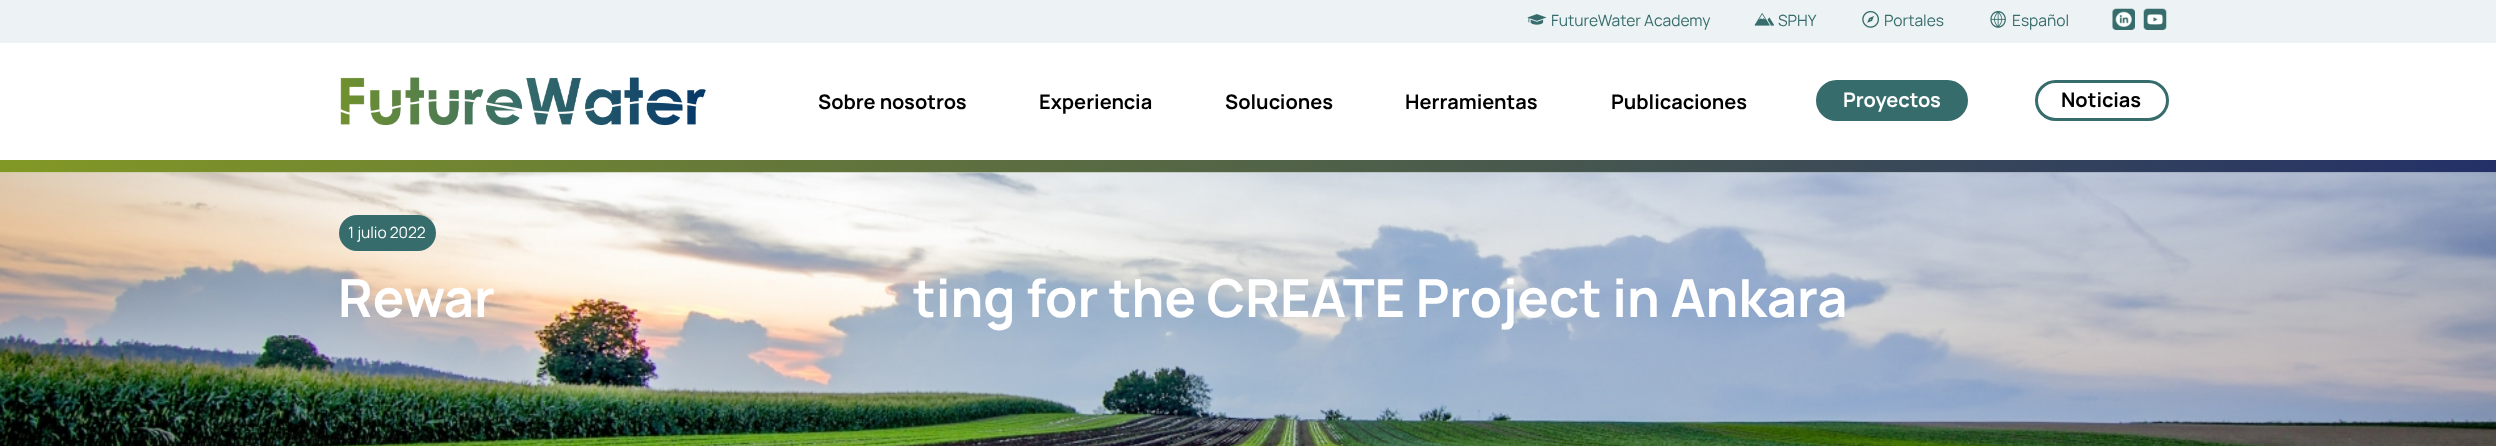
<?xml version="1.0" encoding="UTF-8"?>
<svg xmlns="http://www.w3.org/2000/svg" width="2496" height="446">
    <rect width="100%" height="100%" fill="#FFFFFF"/>
    <image x="0" y="160" width="2496" height="13" href="img_01.png"/>
    <rect x="0" y="0" width="2496" height="43" fill="#EDF2F4"/>
    <image x="1527" y="14" width="20" height="11" href="img_02.png"/>
    <text x="1551" y="26" font-family="Manrope" font-size="15.6" fill="#366C6B">FutureWater Academy</text>
    <image x="1754" y="13" width="20" height="13" href="img_03.png"/>
    <text x="1778" y="26" font-family="Manrope" font-size="15.6" fill="#366C6B">SPHY</text>
    <image x="1862" y="11" width="17" height="17" href="img_04.png"/>
    <text x="1884" y="26" font-family="Manrope" font-size="15.6" fill="#366C6B">Portales</text>
    <image x="1990" y="11" width="16" height="17" href="img_05.png"/>
    <text x="2012" y="26" font-family="Manrope" font-size="15.6" fill="#366C6B">Español</text>
    <image x="2112" y="8" width="23" height="22" href="img_06.png"/>
    <image x="2143" y="8" width="24" height="22" href="img_07.png"/>
    <image x="340" y="77" width="366" height="49" href="img_08.png"/>
    <text x="818" y="109" font-family="Manrope" font-size="20" font-weight="700" fill="#000000">Sobre nosotros</text>
    <text x="1039" y="109" font-family="Manrope" font-size="20" font-weight="700" fill="#000000">Experiencia</text>
    <text x="1225" y="109" font-family="Manrope" font-size="20" font-weight="700" fill="#000000">Soluciones</text>
    <text x="1405" y="109" font-family="Manrope" font-size="20" font-weight="700" fill="#000000">Herramientas</text>
    <text x="1611" y="109" font-family="Manrope" font-size="20" font-weight="700" fill="#000000">Publicaciones</text>
    <rect x="1817.5" y="81.5" width="149" height="38" rx="19" fill="#366C6B" stroke="#366C6B" stroke-width="3"/>
    <text x="1843" y="107" font-family="Manrope" font-size="20" font-weight="700" fill="#FFFFFF">Proyectos</text>
    <rect x="2036.5" y="81.5" width="131" height="38" rx="19" fill="none" stroke="#366C6B" stroke-width="3"/>
    <text x="2061" y="107" font-family="Manrope" font-size="20" font-weight="700" fill="#000000">Noticias</text>
    <image x="0" y="172" width="2496" height="274" href="img_09.png"/>
    <rect x="339" y="215" width="97" height="36" rx="18" fill="#366C6B"/>
    <text x="348" y="238" font-family="Manrope" font-size="15.5" fill="#FFFFFF">1 julio 2022</text>
    <text x="338" y="317" font-family="Manrope" font-size="52.5" font-weight="700" fill="#FFFFFF">Rewar</text>
    <text x="913" y="317" font-family="Manrope" font-size="52.5" font-weight="700" fill="#FFFFFF">ting for the CREATE Project in Ankara</text>
</svg>
